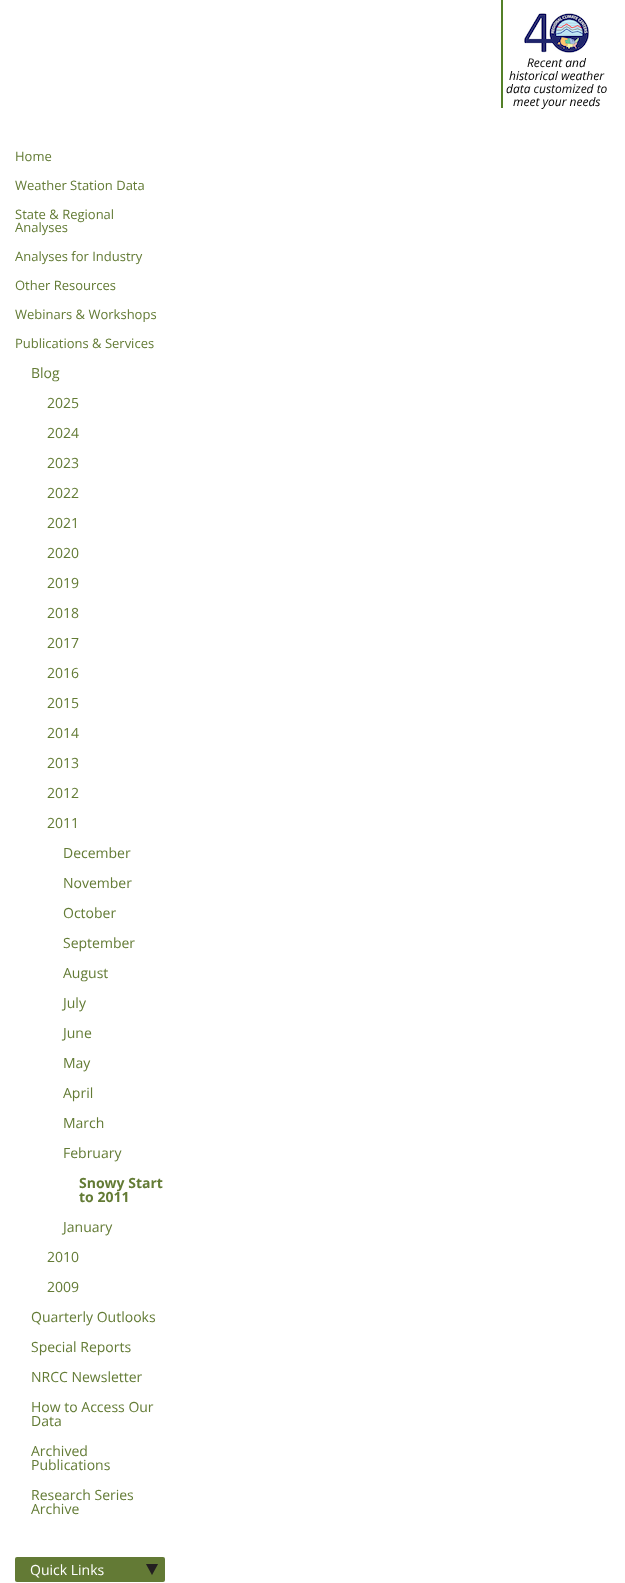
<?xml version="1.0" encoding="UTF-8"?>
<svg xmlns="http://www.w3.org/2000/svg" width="625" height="1583">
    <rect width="100%" height="100%" fill="#FFFFFF"/>
    <rect x="501" y="0" width="2" height="108" fill="#538028"/>
    <image x="524" y="13" width="65" height="40" href="img_01.png"/>
    <text x="527" y="67" font-family="Open Sans" font-size="12" font-style="italic" fill="#000000">Recent and</text>
    <text x="509" y="80" font-family="Open Sans" font-size="12" font-style="italic" fill="#000000">historical weather</text>
    <text x="506" y="93" font-family="Open Sans" font-size="12" font-style="italic" fill="#000000">data customized to</text>
    <text x="513" y="106" font-family="Open Sans" font-size="12" font-style="italic" fill="#000000">meet your needs</text>
    <text x="15" y="161" font-family="Open Sans" font-size="13" fill="#637B35">Home</text>
    <text x="15" y="190" font-family="Open Sans" font-size="13" fill="#637B35">Weather Station Data</text>
    <text font-family="Open Sans" font-size="13" fill="#637B35">
        <tspan x="15" y="219">State &amp; Regional</tspan>
        <tspan x="15" y="232">Analyses</tspan>
    </text>
    <text x="15" y="261" font-family="Open Sans" font-size="13" fill="#637B35">Analyses for Industry</text>
    <text x="15" y="290" font-family="Open Sans" font-size="13" fill="#637B35">Other Resources</text>
    <text x="15" y="319" font-family="Open Sans" font-size="13" fill="#637B35">Webinars &amp; Workshops</text>
    <text x="15" y="348" font-family="Open Sans" font-size="13" fill="#637B35">Publications &amp; Services</text>
    <text x="31" y="378" font-family="Open Sans" font-size="14" fill="#637B35">Blog</text>
    <text x="47" y="408" font-family="Open Sans" font-size="14" fill="#637B35">2025</text>
    <text x="47" y="438" font-family="Open Sans" font-size="14" fill="#637B35">2024</text>
    <text x="47" y="468" font-family="Open Sans" font-size="14" fill="#637B35">2023</text>
    <text x="47" y="498" font-family="Open Sans" font-size="14" fill="#637B35">2022</text>
    <text x="47" y="528" font-family="Open Sans" font-size="14" fill="#637B35">2021</text>
    <text x="47" y="558" font-family="Open Sans" font-size="14" fill="#637B35">2020</text>
    <text x="47" y="588" font-family="Open Sans" font-size="14" fill="#637B35">2019</text>
    <text x="47" y="618" font-family="Open Sans" font-size="14" fill="#637B35">2018</text>
    <text x="47" y="648" font-family="Open Sans" font-size="14" fill="#637B35">2017</text>
    <text x="47" y="678" font-family="Open Sans" font-size="14" fill="#637B35">2016</text>
    <text x="47" y="708" font-family="Open Sans" font-size="14" fill="#637B35">2015</text>
    <text x="47" y="738" font-family="Open Sans" font-size="14" fill="#637B35">2014</text>
    <text x="47" y="768" font-family="Open Sans" font-size="14" fill="#637B35">2013</text>
    <text x="47" y="798" font-family="Open Sans" font-size="14" fill="#637B35">2012</text>
    <text x="47" y="828" font-family="Open Sans" font-size="14" fill="#637B35">2011</text>
    <text x="63" y="858" font-family="Open Sans" font-size="14" fill="#637B35">December</text>
    <text x="63" y="888" font-family="Open Sans" font-size="14" fill="#637B35">November</text>
    <text x="63" y="918" font-family="Open Sans" font-size="14" fill="#637B35">October</text>
    <text x="63" y="948" font-family="Open Sans" font-size="14" fill="#637B35">September</text>
    <text x="63" y="978" font-family="Open Sans" font-size="14" fill="#637B35">August</text>
    <text x="63" y="1008" font-family="Open Sans" font-size="14" fill="#637B35">July</text>
    <text x="63" y="1038" font-family="Open Sans" font-size="14" fill="#637B35">June</text>
    <text x="63" y="1068" font-family="Open Sans" font-size="14" fill="#637B35">May</text>
    <text x="63" y="1098" font-family="Open Sans" font-size="14" fill="#637B35">April</text>
    <text x="63" y="1128" font-family="Open Sans" font-size="14" fill="#637B35">March</text>
    <text x="63" y="1158" font-family="Open Sans" font-size="14" fill="#637B35">February</text>
    <text font-family="Open Sans" font-size="14" font-weight="700" fill="#637B35">
        <tspan x="79" y="1188">Snowy Start</tspan>
        <tspan x="79" y="1202">to 2011</tspan>
    </text>
    <text x="63" y="1232" font-family="Open Sans" font-size="14" fill="#637B35">January</text>
    <text x="47" y="1262" font-family="Open Sans" font-size="14" fill="#637B35">2010</text>
    <text x="47" y="1292" font-family="Open Sans" font-size="14" fill="#637B35">2009</text>
    <text x="31" y="1322" font-family="Open Sans" font-size="14" fill="#637B35">Quarterly Outlooks</text>
    <text x="31" y="1352" font-family="Open Sans" font-size="14" fill="#637B35">Special Reports</text>
    <text x="31" y="1382" font-family="Open Sans" font-size="14" fill="#637B35">NRCC Newsletter</text>
    <text font-family="Open Sans" font-size="14" fill="#637B35">
        <tspan x="31" y="1412">How to Access Our</tspan>
        <tspan x="31" y="1426">Data</tspan>
    </text>
    <text font-family="Open Sans" font-size="14" fill="#637B35">
        <tspan x="31" y="1456">Archived</tspan>
        <tspan x="31" y="1470">Publications</tspan>
    </text>
    <text font-family="Open Sans" font-size="14" fill="#637B35">
        <tspan x="31" y="1500">Research Series</tspan>
        <tspan x="31" y="1514">Archive</tspan>
    </text>
    <rect x="15" y="1557" width="150" height="25" rx="2" fill="#637A35"/>
    <image x="146" y="1564" width="12" height="11" href="img_02.png"/>
    <text x="30" y="1575" font-family="Open Sans" font-size="14" fill="#FFFFFF">Quick Links</text>
</svg>
